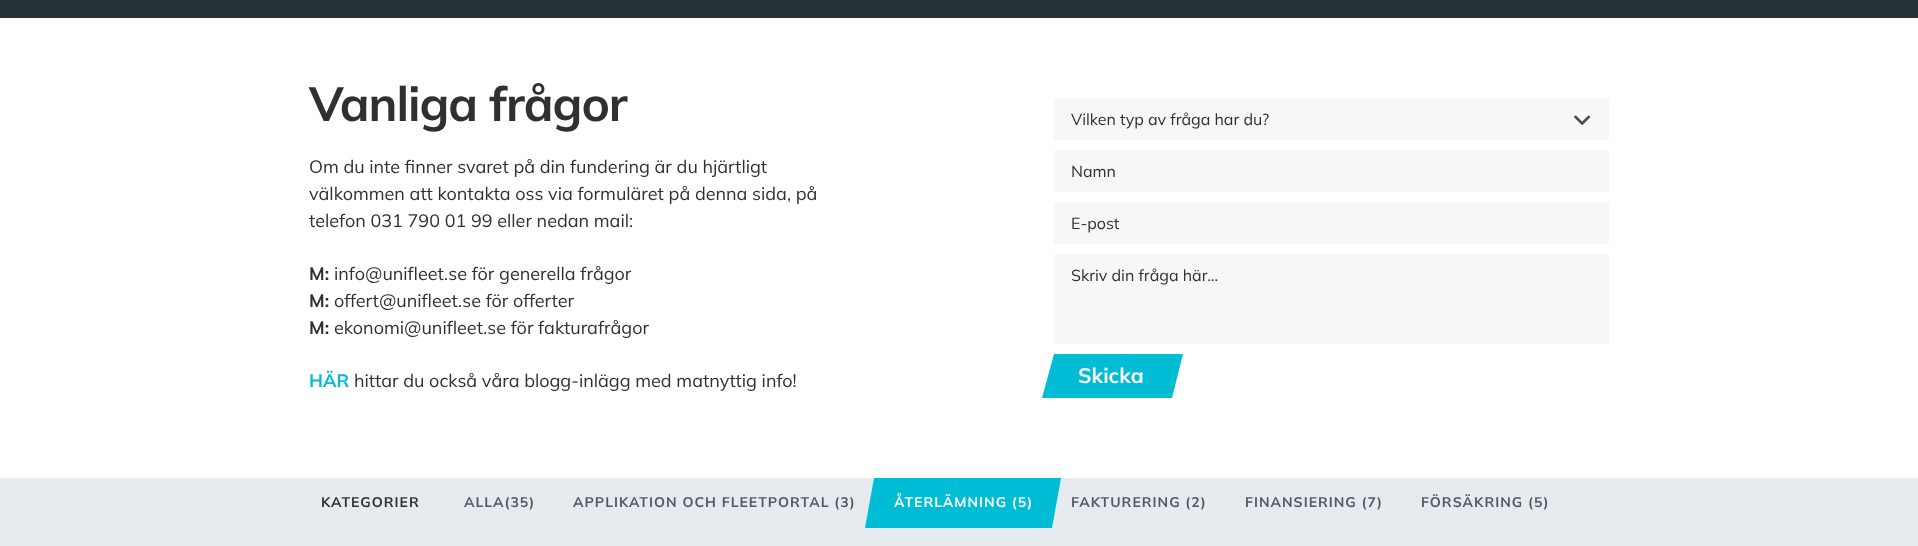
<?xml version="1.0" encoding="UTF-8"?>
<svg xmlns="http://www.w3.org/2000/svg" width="1918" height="546">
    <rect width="100%" height="100%" fill="#FFFFFF"/>
    <rect x="0" y="0" width="1918" height="18" fill="#263238"/>
    <text x="309" y="121" font-family="Mulish" font-size="48" font-weight="700" letter-spacing="-1" fill="#303030">Vanliga frågor</text>
    <text font-family="Mulish" font-size="18" fill="#303030">
        <tspan x="309" y="173">Om du inte finner svaret på din fundering är du hjärtligt</tspan>
        <tspan x="309" y="200">välkommen att kontakta oss via formuläret på denna sida, på</tspan>
        <tspan x="309" y="227">telefon 031 790 01 99 eller nedan mail:</tspan>
    </text>
    <text x="309" y="280" font-family="Mulish" font-size="18" font-weight="700" fill="#303030">M:</text>
    <text x="334" y="280" font-family="Mulish" font-size="18" fill="#303030">info@unifleet.se för generella frågor</text>
    <text x="309" y="307" font-family="Mulish" font-size="18" font-weight="700" fill="#303030">M:</text>
    <text x="334" y="307" font-family="Mulish" font-size="18" fill="#303030">offert@unifleet.se för offerter</text>
    <text x="309" y="334" font-family="Mulish" font-size="18" font-weight="700" fill="#303030">M:</text>
    <text x="334" y="334" font-family="Mulish" font-size="18" fill="#303030">ekonomi@unifleet.se för fakturafrågor</text>
    <text x="309" y="387" font-family="Mulish" font-size="18" font-weight="700" fill="#00BCD4">HÄR</text>
    <text x="354" y="387" font-family="Mulish" font-size="18" fill="#303030">hittar du också våra blogg-inlägg med matnyttig info!</text>
    <rect x="1054" y="98" width="555" height="42" fill="#F6F7F7"/>
    <text x="1071" y="125" font-family="Mulish" font-size="16" fill="#303030">Vilken typ av fråga har du?</text>
    <image x="1574" y="115" width="17" height="10" href="img_01.png"/>
    <rect x="1054" y="150" width="555" height="42" fill="#F6F7F7"/>
    <text x="1071" y="177" font-family="Mulish" font-size="16" fill="#303030">Namn</text>
    <rect x="1054" y="202" width="555" height="42" fill="#F6F7F7"/>
    <text x="1071" y="229" font-family="Mulish" font-size="16" fill="#303030">E-post</text>
    <rect x="1054" y="254" width="555" height="90" fill="#F6F7F7"/>
    <text x="1071" y="281" font-family="Mulish" font-size="16" fill="#303030">Skriv din fråga här...</text>
    <rect x="1058" y="354" width="110" height="44" fill="#00BCD4"/>
    <path d="M 1054 354 H 1070 L 1058 398 H 1042 Z" fill="#00BCD4"/>
    <text x="1078" y="383" font-family="Mulish" font-size="21" font-weight="700" fill="#FFFFFF">Skicka</text>
    <path d="M 1168 354 H 1183 L 1172 398 H 1156 Z" fill="#00BCD4"/>
    <rect x="0" y="478" width="1918" height="68" fill="#E5EBEE"/>
    <text x="321" y="507" font-family="Mulish" font-size="14" font-weight="700" letter-spacing="1" fill="#303030">KATEGORIER</text>
    <text x="464" y="507" font-family="Mulish" font-size="14" font-weight="700" letter-spacing="1" fill="#4F5B62">ALLA(35)</text>
    <text x="573" y="507" font-family="Mulish" font-size="14" font-weight="700" letter-spacing="1" fill="#4F5B62">APPLIKATION OCH FLEETPORTAL (3)</text>
    <rect x="876" y="478" width="175" height="50" fill="#00BCD4"/>
    <path d="M 874 478 H 885 L 876 528 H 865 Z" fill="#00BCD4"/>
    <text x="894" y="507" font-family="Mulish" font-size="14" font-weight="700" letter-spacing="1" fill="#FFFFFF">ÅTERLÄMNING (5)</text>
    <path d="M 1051 478 H 1061 L 1052 528 H 1042 Z" fill="#00BCD4"/>
    <text x="1071" y="507" font-family="Mulish" font-size="14" font-weight="700" letter-spacing="1" fill="#4F5B62">FAKTURERING (2)</text>
    <text x="1245" y="507" font-family="Mulish" font-size="14" font-weight="700" letter-spacing="1" fill="#4F5B62">FINANSIERING (7)</text>
    <text x="1421" y="507" font-family="Mulish" font-size="14" font-weight="700" letter-spacing="1" fill="#4F5B62">FÖRSÄKRING (5)</text>
</svg>
